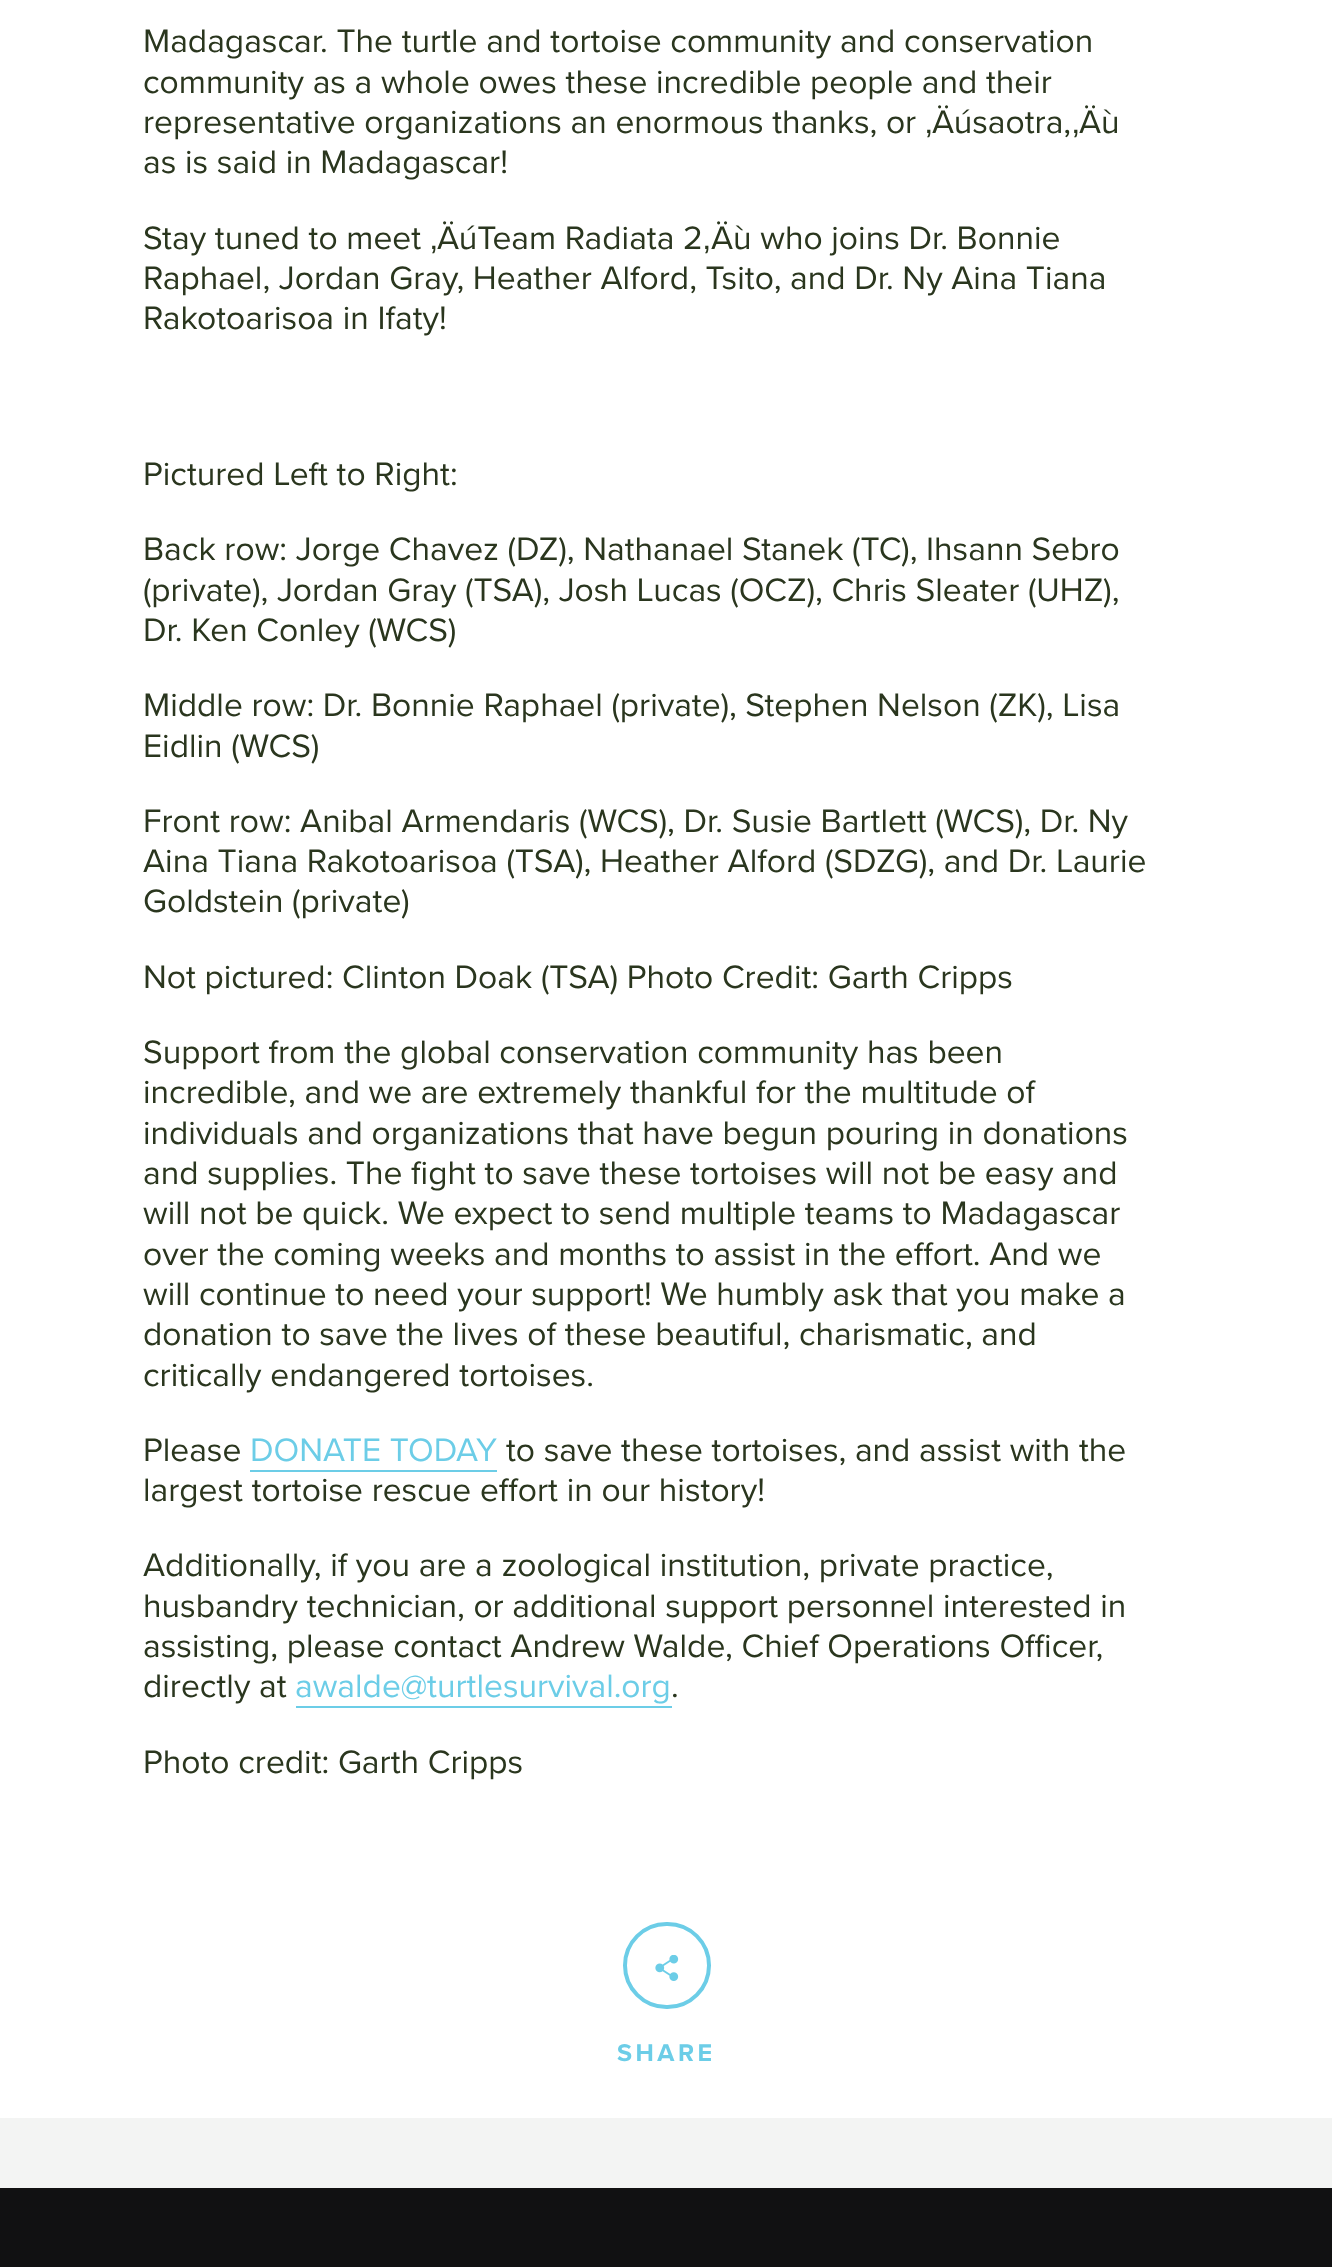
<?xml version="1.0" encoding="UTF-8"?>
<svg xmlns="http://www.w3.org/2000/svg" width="1332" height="2267">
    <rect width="100%" height="100%" fill="#F3F4F3"/>
    <rect x="0" y="0" width="1332" height="2118" fill="#FFFFFF"/>
    <text font-family="Proxima Nova" font-size="33.6" fill="#2A361E">
        <tspan x="143" y="52">Madagascar. The turtle and tortoise community and conservation</tspan>
        <tspan x="143" y="93">community as a whole owes these incredible people and their</tspan>
        <tspan x="143" y="133">representative organizations an enormous thanks, or</tspan>
    </text>
    <text x="925" y="133" font-family="Liberation Sans" font-size="33.6" fill="#2A361E">‚</text>
    <text x="932" y="133" font-family="Proxima Nova" font-size="33.6" fill="#2A361E">Äúsaotra,</text>
    <text x="1072" y="133" font-family="Liberation Sans" font-size="33.6" fill="#2A361E">‚</text>
    <text x="1079" y="133" font-family="Proxima Nova" font-size="33.6" fill="#2A361E">Äù</text>
    <text x="143" y="173" font-family="Proxima Nova" font-size="33.6" fill="#2A361E">as is said in Madagascar!</text>
    <text x="143" y="249" font-family="Proxima Nova" font-size="33.6" fill="#2A361E">Stay tuned to meet</text>
    <text x="430" y="249" font-family="Liberation Sans" font-size="33.6" fill="#2A361E">‚</text>
    <text x="437" y="249" font-family="Proxima Nova" font-size="33.6" fill="#2A361E">ÄúTeam Radiata 2</text>
    <text x="703" y="249" font-family="Liberation Sans" font-size="33.6" fill="#2A361E">‚</text>
    <text x="711" y="249" font-family="Proxima Nova" font-size="33.6" fill="#2A361E">Äù who joins Dr. Bonnie</text>
    <text font-family="Proxima Nova" font-size="33.6" fill="#2A361E">
        <tspan x="143" y="289">Raphael, Jordan Gray, Heather Alford, Tsito, and Dr. Ny Aina Tiana</tspan>
        <tspan x="143" y="329">Rakotoarisoa in Ifaty!</tspan>
    </text>
    <text x="143" y="485" font-family="Proxima Nova" font-size="33.6" fill="#2A361E">Pictured Left to Right:</text>
    <text font-family="Proxima Nova" font-size="33.6" fill="#2A361E">
        <tspan x="143" y="560">Back row: Jorge Chavez (DZ), Nathanael Stanek (TC), Ihsann Sebro</tspan>
        <tspan x="143" y="601">(private), Jordan Gray (TSA), Josh Lucas (OCZ), Chris Sleater (UHZ),</tspan>
        <tspan x="143" y="641">Dr. Ken Conley (WCS)</tspan>
    </text>
    <text font-family="Proxima Nova" font-size="33.6" fill="#2A361E">
        <tspan x="143" y="716">Middle row: Dr. Bonnie Raphael (private), Stephen Nelson (ZK), Lisa</tspan>
        <tspan x="143" y="757">Eidlin (WCS)</tspan>
    </text>
    <text font-family="Proxima Nova" font-size="33.6" fill="#2A361E">
        <tspan x="143" y="832">Front row: Anibal Armendaris (WCS), Dr. Susie Bartlett (WCS), Dr. Ny</tspan>
        <tspan x="143" y="872">Aina Tiana Rakotoarisoa (TSA), Heather Alford (SDZG), and Dr. Laurie</tspan>
        <tspan x="143" y="912">Goldstein (private)</tspan>
    </text>
    <text x="143" y="988" font-family="Proxima Nova" font-size="33.6" fill="#2A361E">Not pictured: Clinton Doak (TSA) Photo Credit: Garth Cripps</text>
    <text font-family="Proxima Nova" font-size="33.6" fill="#2A361E">
        <tspan x="143" y="1063">Support from the global conservation community has been</tspan>
        <tspan x="143" y="1103">incredible, and we are extremely thankful for the multitude of</tspan>
        <tspan x="143" y="1144">individuals and organizations that have begun pouring in donations</tspan>
        <tspan x="143" y="1184">and supplies. The fight to save these tortoises will not be easy and</tspan>
        <tspan x="143" y="1224">will not be quick. We expect to send multiple teams to Madagascar</tspan>
        <tspan x="143" y="1265">over the coming weeks and months to assist in the effort. And we</tspan>
        <tspan x="143" y="1305">will continue to need your support! We humbly ask that you make a</tspan>
        <tspan x="143" y="1345">donation to save the lives of these beautiful, charismatic, and</tspan>
        <tspan x="143" y="1386">critically endangered tortoises.</tspan>
    </text>
    <text x="143" y="1461" font-family="Proxima Nova" font-size="33.6" fill="#2A361E">Please</text>
    <text x="250" y="1461" font-family="Proxima Nova" font-size="33.6" fill="#6CCDE7">DONATE TODAY</text>
    <rect x="250" y="1470" width="247" height="2" fill="#6CCDE7"/>
    <text x="506" y="1461" font-family="Proxima Nova" font-size="33.6" fill="#2A361E">to save these tortoises, and assist with the</text>
    <text x="143" y="1501" font-family="Proxima Nova" font-size="33.6" fill="#2A361E">largest tortoise rescue effort in our history!</text>
    <text font-family="Proxima Nova" font-size="33.6" fill="#2A361E">
        <tspan x="143" y="1576">Additionally, if you are a zoological institution, private practice,</tspan>
        <tspan x="143" y="1617">husbandry technician, or additional support personnel interested in</tspan>
        <tspan x="143" y="1657">assisting, please contact Andrew Walde, Chief Operations Officer,</tspan>
        <tspan x="143" y="1697">directly at</tspan>
    </text>
    <text x="295" y="1697" font-family="Proxima Nova" font-size="33.6" fill="#6CCDE7">awalde@turtlesurvival.org</text>
    <rect x="296" y="1706" width="376" height="2" fill="#6CCDE7"/>
    <text x="671" y="1697" font-family="Proxima Nova" font-size="33.6" fill="#2A361E">.</text>
    <text x="143" y="1773" font-family="Proxima Nova" font-size="33.6" fill="#2A361E">Photo credit: Garth Cripps</text>
    <rect x="625" y="1924" width="84" height="83" rx="41.5" fill="none" stroke="#6CCDE7" stroke-width="4"/>
    <image x="655" y="1955" width="24" height="26" href="img_01.png"/>
    <text x="617" y="2061" font-family="Proxima Nova" font-size="25" font-weight="700" letter-spacing="3.5" fill="#6CCDE7">SHARE</text>
    <rect x="0" y="2188" width="1332" height="79" fill="#111112"/>
</svg>
